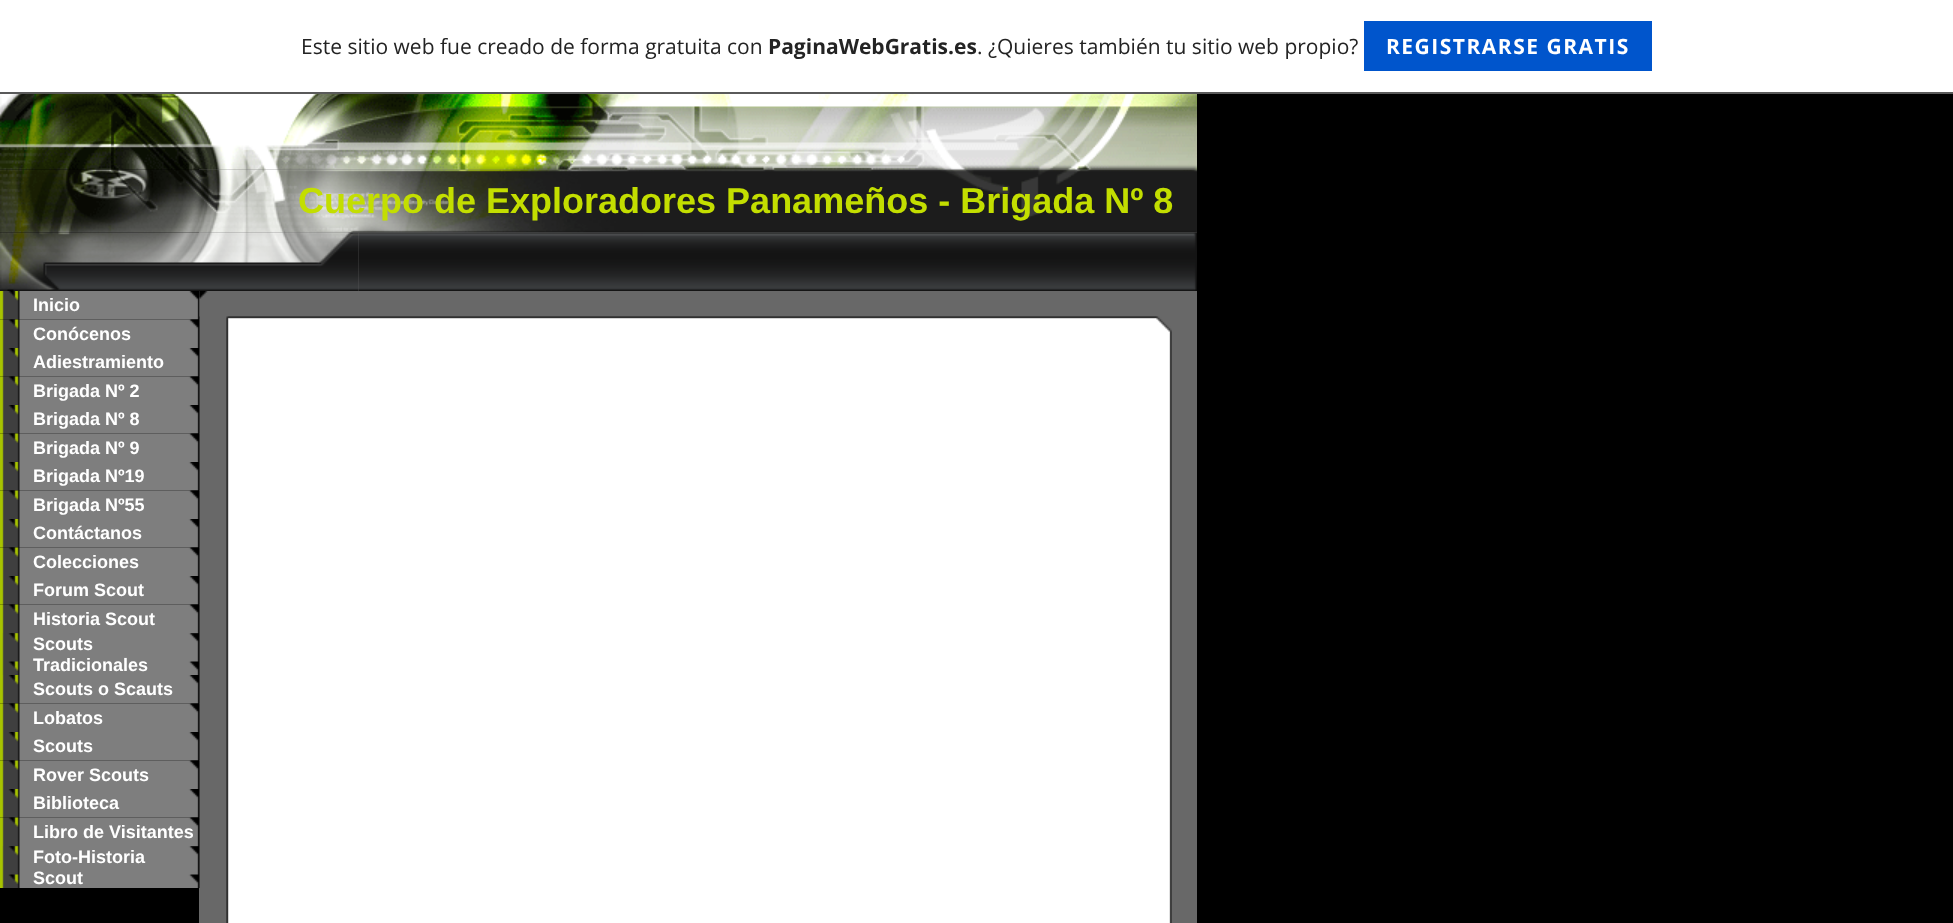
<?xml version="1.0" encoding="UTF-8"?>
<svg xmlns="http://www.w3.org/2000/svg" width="1953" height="923">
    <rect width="100%" height="100%" fill="#000000"/>
    <rect x="0" y="0" width="1953" height="92" fill="#FFFFFF"/>
    <rect x="0" y="92" width="1953" height="2" fill="#5A5A5A"/>
    <text x="301" y="54" font-family="Open Sans" font-size="21" fill="#232323">Este sitio web fue creado de forma gratuita con</text>
    <text x="768" y="54" font-family="Open Sans" font-size="21" font-weight="700" fill="#232323">PaginaWebGratis.es</text>
    <text x="977" y="54" font-family="Open Sans" font-size="21" fill="#232323">. ¿Quieres también tu sitio web propio?</text>
    <rect x="1364" y="21" width="288" height="50" fill="#0055CC"/>
    <text x="1386" y="54" font-family="Open Sans" font-size="21" font-weight="700" letter-spacing="1.5" fill="#FFFFFF">REGISTRARSE GRATIS</text>
    <rect x="199" y="169" width="998" height="754" fill="#686868"/>
    <image x="0" y="169" width="1197" height="64" href="img_02.png"/>
    <image x="0" y="94" width="1197" height="76" href="img_01.png"/>
    <text x="298" y="213" font-family="Liberation Sans" font-size="36" font-weight="700" fill="#C3DE00">Cuerpo de Exploradores Panameños - Brigada Nº 8</text>
    <image x="358" y="232" width="839" height="59" href="img_04.png"/>
    <image x="0" y="232" width="359" height="59" href="img_03.png"/>
    <image x="0" y="291" width="200" height="29" href="img_05.png"/>
    <text x="33" y="311" font-family="Liberation Sans" font-size="18" font-weight="700" fill="#FFFFFF">Inicio</text>
    <image x="0" y="319" width="200" height="29" href="img_06.png"/>
    <text x="33" y="340" font-family="Liberation Sans" font-size="18" font-weight="700" fill="#FFFFFF">Conócenos</text>
    <image x="0" y="348" width="200" height="29" href="img_05.png"/>
    <text x="33" y="368" font-family="Liberation Sans" font-size="18" font-weight="700" fill="#FFFFFF">Adiestramiento</text>
    <image x="0" y="376" width="200" height="29" href="img_06.png"/>
    <text x="33" y="397" font-family="Liberation Sans" font-size="18" font-weight="700" fill="#FFFFFF">Brigada Nº 2</text>
    <image x="0" y="405" width="200" height="29" href="img_05.png"/>
    <text x="33" y="425" font-family="Liberation Sans" font-size="18" font-weight="700" fill="#FFFFFF">Brigada Nº 8</text>
    <image x="0" y="433" width="200" height="29" href="img_06.png"/>
    <text x="33" y="454" font-family="Liberation Sans" font-size="18" font-weight="700" fill="#FFFFFF">Brigada Nº 9</text>
    <image x="0" y="462" width="200" height="29" href="img_05.png"/>
    <text x="33" y="482" font-family="Liberation Sans" font-size="18" font-weight="700" fill="#FFFFFF">Brigada Nº19</text>
    <image x="0" y="490" width="200" height="29" href="img_06.png"/>
    <text x="33" y="511" font-family="Liberation Sans" font-size="18" font-weight="700" fill="#FFFFFF">Brigada Nº55</text>
    <image x="0" y="519" width="200" height="29" href="img_05.png"/>
    <text x="33" y="539" font-family="Liberation Sans" font-size="18" font-weight="700" fill="#FFFFFF">Contáctanos</text>
    <image x="0" y="547" width="200" height="29" href="img_06.png"/>
    <text x="33" y="568" font-family="Liberation Sans" font-size="18" font-weight="700" fill="#FFFFFF">Colecciones</text>
    <image x="0" y="576" width="200" height="29" href="img_05.png"/>
    <text x="33" y="596" font-family="Liberation Sans" font-size="18" font-weight="700" fill="#FFFFFF">Forum Scout</text>
    <image x="0" y="604" width="200" height="29" href="img_06.png"/>
    <text x="33" y="625" font-family="Liberation Sans" font-size="18" font-weight="700" fill="#FFFFFF">Historia Scout</text>
    <image x="0" y="633" width="200" height="42" href="img_07.png"/>
    <text font-family="Liberation Sans" font-size="18" font-weight="700" fill="#FFFFFF">
        <tspan x="33" y="650">Scouts</tspan>
        <tspan x="33" y="671">Tradicionales</tspan>
    </text>
    <image x="0" y="675" width="200" height="29" href="img_05.png"/>
    <text x="33" y="695" font-family="Liberation Sans" font-size="18" font-weight="700" fill="#FFFFFF">Scouts o Scauts</text>
    <image x="0" y="703" width="200" height="29" href="img_06.png"/>
    <text x="33" y="724" font-family="Liberation Sans" font-size="18" font-weight="700" fill="#FFFFFF">Lobatos</text>
    <image x="0" y="732" width="200" height="29" href="img_05.png"/>
    <text x="33" y="752" font-family="Liberation Sans" font-size="18" font-weight="700" fill="#FFFFFF">Scouts</text>
    <image x="0" y="760" width="200" height="29" href="img_06.png"/>
    <text x="33" y="781" font-family="Liberation Sans" font-size="18" font-weight="700" fill="#FFFFFF">Rover Scouts</text>
    <image x="0" y="789" width="200" height="29" href="img_05.png"/>
    <text x="33" y="809" font-family="Liberation Sans" font-size="18" font-weight="700" fill="#FFFFFF">Biblioteca</text>
    <image x="0" y="817" width="200" height="29" href="img_06.png"/>
    <text x="33" y="838" font-family="Liberation Sans" font-size="18" font-weight="700" fill="#FFFFFF">Libro de Visitantes</text>
    <image x="0" y="846" width="200" height="42" href="img_08.png"/>
    <text font-family="Liberation Sans" font-size="18" font-weight="700" fill="#FFFFFF">
        <tspan x="33" y="863">Foto-Historia</tspan>
        <tspan x="33" y="884">Scout</tspan>
    </text>
    <image x="199" y="291" width="9" height="26" href="img_09.png"/>
    <image x="226" y="316" width="946" height="17" href="img_10.png"/>
    <image x="226" y="333" width="946" height="590" href="img_11.png"/>
</svg>
